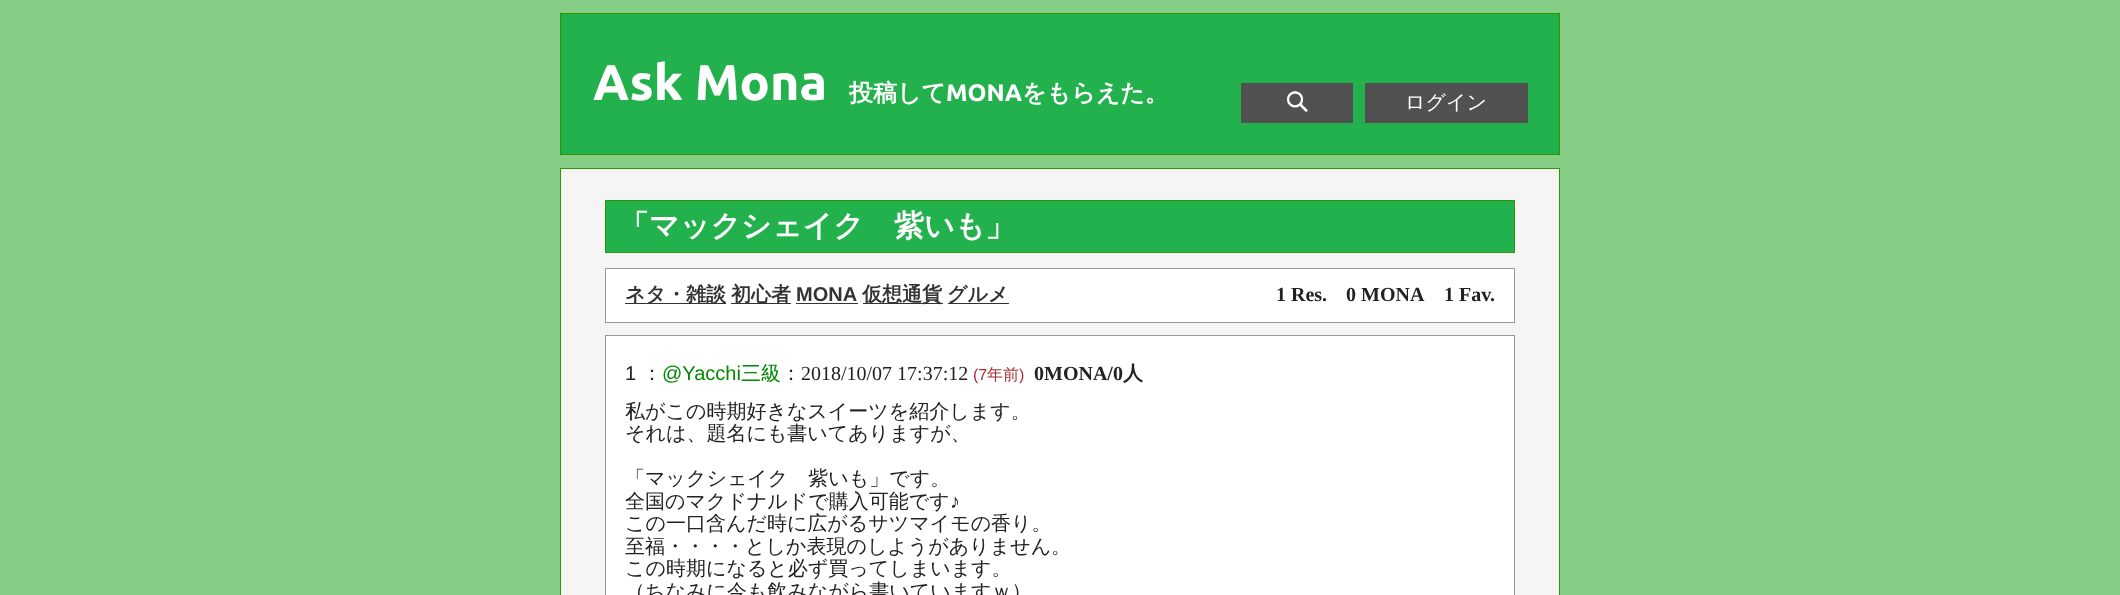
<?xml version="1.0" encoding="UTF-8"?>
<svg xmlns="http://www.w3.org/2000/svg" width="2120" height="595">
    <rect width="100%" height="100%" fill="#86CE86"/>
    <rect x="560.5" y="13.5" width="999" height="141" fill="#22B14C" stroke="#309700"/>
    <text x="593" y="100" font-family="Ubuntu" font-size="50" font-weight="700" fill="#FFFFFF">Ask Mona</text>
    <text x="849" y="101" font-family="WenQuanYi Zen Hei" font-size="24" font-weight="700" fill="#FFFFFF">投稿して</text>
    <text x="946" y="101" font-family="Ubuntu" font-size="24" font-weight="700" fill="#FFFFFF">MONA</text>
    <text x="1022" y="101" font-family="WenQuanYi Zen Hei" font-size="24" font-weight="700" fill="#FFFFFF">をもらえた。</text>
    <rect x="1241" y="83" width="112" height="40" fill="#515151"/>
    <image x="1287" y="91" width="21" height="21" href="img_01.png"/>
    <rect x="1365" y="83" width="163" height="40" fill="#515151"/>
    <text x="1405" y="109" font-family="WenQuanYi Zen Hei" font-size="20" font-weight="500" fill="#FFFFFF">ログイン</text>
    <rect x="560.5" y="168.5" width="999" height="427" fill="#F5F5F5" stroke="#309700"/>
    <rect x="605.5" y="200.5" width="909" height="52" fill="#22B14C" stroke="#309700"/>
    <text x="619" y="236" font-family="WenQuanYi Zen Hei" font-size="30" font-weight="700" fill="#FFFFFF">「マックシェイク　紫いも」</text>
    <rect x="605.5" y="268.5" width="909" height="54" fill="#FFFFFF" stroke="#999999"/>
    <rect x="625" y="303" width="101" height="1" fill="#333333"/>
    <text x="625" y="301" font-family="WenQuanYi Zen Hei" font-size="20" font-weight="700" fill="#333333">ネタ・雑談</text>
    <rect x="731" y="303" width="60" height="1" fill="#333333"/>
    <text x="731" y="301" font-family="WenQuanYi Zen Hei" font-size="20" font-weight="700" fill="#333333">初心者</text>
    <text x="796" y="301" font-family="Liberation Sans" font-size="20" font-weight="700" fill="#333333">MONA</text>
    <rect x="796" y="303" width="62" height="1" fill="#333333"/>
    <rect x="863" y="303" width="80" height="1" fill="#333333"/>
    <text x="862" y="301" font-family="WenQuanYi Zen Hei" font-size="20" font-weight="700" fill="#333333">仮想通貨</text>
    <rect x="948" y="303" width="61" height="1" fill="#333333"/>
    <text x="947" y="301" font-family="WenQuanYi Zen Hei" font-size="20" font-weight="700" fill="#333333">グルメ</text>
    <text x="1276" y="301" font-family="Liberation Serif" font-size="20" font-weight="700" fill="#222222">1 Res.</text>
    <text x="1346" y="301" font-family="Liberation Serif" font-size="20" font-weight="700" fill="#222222">0 MONA</text>
    <text x="1444" y="301" font-family="Liberation Serif" font-size="20" font-weight="700" fill="#222222">1 Fav.</text>
    <rect x="605.5" y="335.5" width="909" height="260" fill="#FFFFFF" stroke="#999999"/>
    <text x="625" y="380" font-family="Liberation Sans" font-size="20" fill="#222222">1</text>
    <text x="642" y="380" font-family="WenQuanYi Zen Hei" font-size="20" font-weight="500" fill="#222222">：</text>
    <text x="662" y="380" font-family="Liberation Sans" font-size="20" fill="#008800">@Yacchi</text>
    <text x="741" y="380" font-family="WenQuanYi Zen Hei" font-size="20" font-weight="500" fill="#008800">三級</text>
    <text x="781" y="380" font-family="WenQuanYi Zen Hei" font-size="20" font-weight="500" fill="#222222">：</text>
    <text x="801" y="380" font-family="Liberation Serif" font-size="20" fill="#222222">2018/10/07 17:37:12</text>
    <text x="973" y="380" font-family="Liberation Sans" font-size="16" fill="#A3323A">(7</text>
    <text x="987" y="380" font-family="WenQuanYi Zen Hei" font-size="16" font-weight="500" fill="#A3323A">年前</text>
    <text x="1019" y="380" font-family="Liberation Sans" font-size="16" fill="#A3323A">)</text>
    <text x="1034" y="380" font-family="Liberation Serif" font-size="20" font-weight="700" fill="#222222">0MONA/0</text>
    <text x="1123" y="380" font-family="WenQuanYi Zen Hei" font-size="20" font-weight="700" fill="#222222">人</text>
    <text font-family="WenQuanYi Zen Hei" font-size="20" font-weight="500" fill="#222222">
        <tspan x="625" y="418">私がこの時期好きなスイーツを紹介します。</tspan>
        <tspan x="625" y="440">それは、題名にも書いてありますが、</tspan>
    </text>
    <text font-family="WenQuanYi Zen Hei" font-size="20" font-weight="500" fill="#222222">
        <tspan x="625" y="485">「マックシェイク　紫いも」です。</tspan>
        <tspan x="625" y="508">全国のマクドナルドで購入可能です</tspan>
    </text>
    <text x="950" y="508" font-family="Liberation Serif" font-size="20" fill="#222222">♪</text>
    <text font-family="WenQuanYi Zen Hei" font-size="20" font-weight="500" fill="#222222">
        <tspan x="625" y="530">この一口含んだ時に広がるサツマイモの香り。</tspan>
        <tspan x="625" y="553">至福・・・・としか表現のしようがありません。</tspan>
        <tspan x="625" y="575">この時期になると必ず買ってしまいます。</tspan>
        <tspan x="625" y="598">（ちなみに今も飲みながら書いていますｗ）</tspan>
    </text>
</svg>
